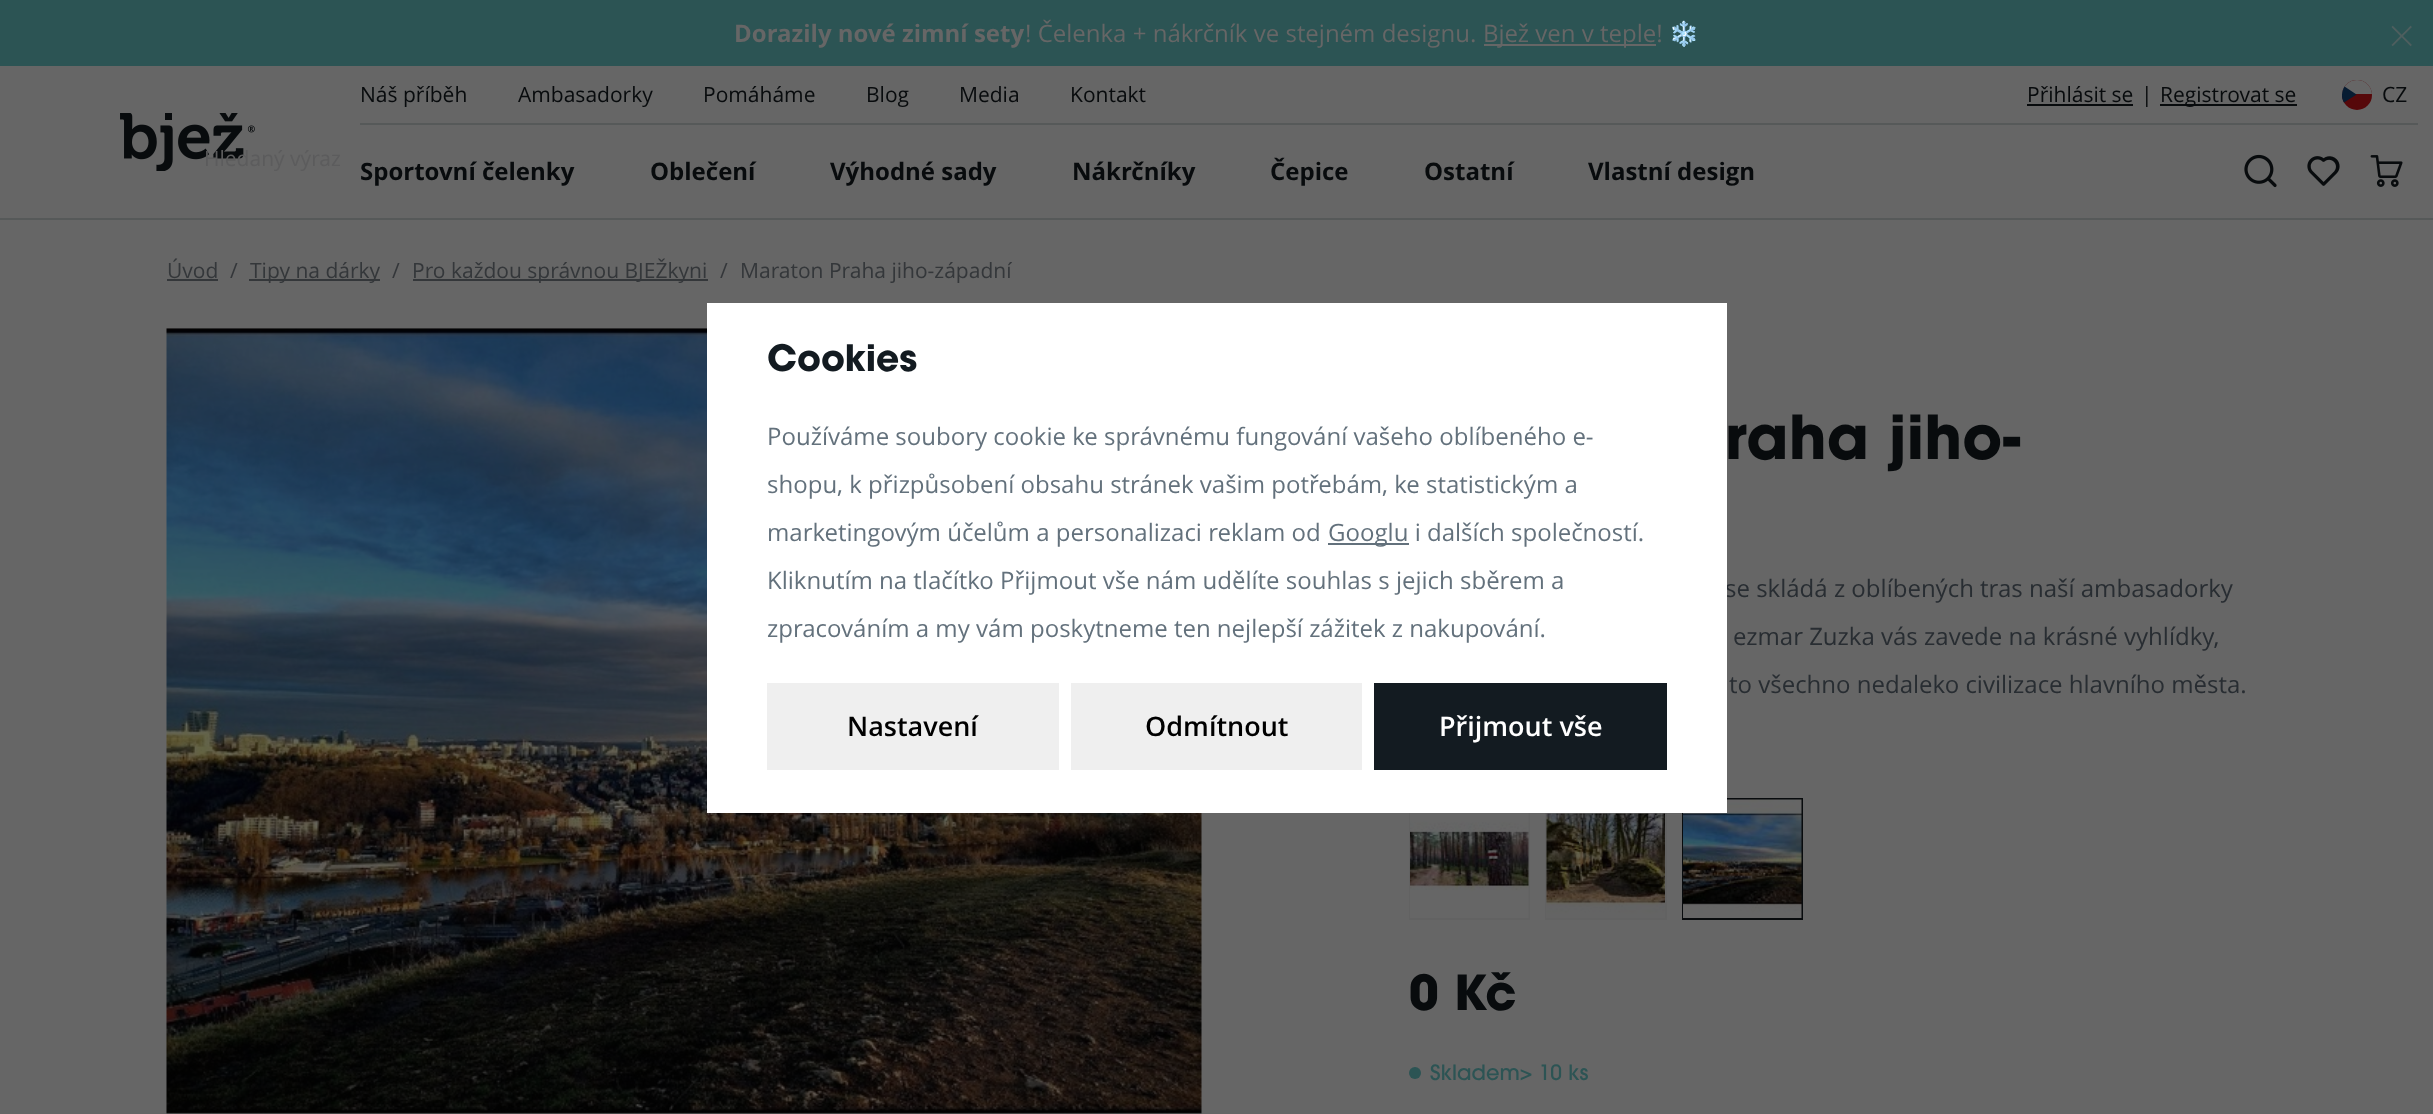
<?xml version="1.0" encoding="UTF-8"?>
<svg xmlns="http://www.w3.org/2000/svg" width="2433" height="1114">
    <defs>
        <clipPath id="clip1"><rect x="2342" y="80" width="30" height="30" rx="15"/></clipPath>
    </defs>
    <rect width="100%" height="100%" fill="#666666"/>
    <rect x="0" y="0" width="2433" height="66" fill="#2C5454"/>
    <text x="734" y="42" font-family="Open Sans" font-size="24" font-weight="700" fill="#666666">Dorazily nové zimní sety</text>
    <text x="1025" y="42" font-family="Open Sans" font-size="24" fill="#666666">! Čelenka + nákrčník ve stejném designu.</text>
    <rect x="1484" y="44" width="172" height="2" fill="#666666"/>
    <text x="1483" y="42" font-family="Open Sans" font-size="24" fill="#666666">Bjež ven v teple!</text>
    <text x="1669" y="42" font-family="Noto Color Emoji" font-size="24" fill="#666666">❄️</text>
    <image x="2391" y="25" width="21" height="22" href="img_01.png"/>
    <image x="120" y="113" width="135" height="58" href="img_02.png"/>
    <text x="204" y="166" font-family="Open Sans" font-size="21" fill="#5C5C5D">Hledaný výraz</text>
    <rect x="0" y="218" width="2433" height="2" fill="#565959"/>
    <rect x="360" y="123" width="2058" height="2" fill="#565959"/>
    <text x="360" y="102" font-family="Open Sans" font-size="21" fill="#080B0D">Náš příběh</text>
    <text x="518" y="102" font-family="Open Sans" font-size="21" fill="#080B0D">Ambasadorky</text>
    <text x="703" y="102" font-family="Open Sans" font-size="21" fill="#080B0D">Pomáháme</text>
    <text x="866" y="102" font-family="Open Sans" font-size="21" fill="#080B0D">Blog</text>
    <text x="959" y="102" font-family="Open Sans" font-size="21" fill="#080B0D">Media</text>
    <text x="1070" y="102" font-family="Open Sans" font-size="21" fill="#080B0D">Kontakt</text>
    <text x="2027" y="102" font-family="Open Sans" font-size="21" fill="#080B0D">Přihlásit se</text>
    <rect x="2027" y="104" width="106" height="2" fill="#080B0D"/>
    <text x="2141" y="102" font-family="Open Sans" font-size="21" fill="#080B0D">|</text>
    <rect x="2160" y="104" width="137" height="2" fill="#080B0D"/>
    <text x="2160" y="102" font-family="Open Sans" font-size="21" fill="#080B0D">Registrovat se</text>
    <circle cx="2357" cy="95" r="15" fill="#56080A"/>
    <g clip-path="url(#clip1)">
        <rect x="2342" y="80" width="30" height="14" fill="#666666"/>
    </g>
    <path d="M 2356.5 94.5 L 2344 102.5 C 2341 98 2341.5 91.5 2344.5 86.5 Z" fill="#071C32"/>
    <text x="2382" y="102" font-family="Open Sans" font-size="21" fill="#080B0D">CZ</text>
    <text x="360" y="180" font-family="Open Sans" font-size="24" font-weight="700" fill="#080B0D">Sportovní čelenky</text>
    <text x="650" y="180" font-family="Open Sans" font-size="24" font-weight="700" fill="#080B0D">Oblečení</text>
    <text x="830" y="180" font-family="Open Sans" font-size="24" font-weight="700" fill="#080B0D">Výhodné sady</text>
    <text x="1072" y="180" font-family="Open Sans" font-size="24" font-weight="700" fill="#080B0D">Nákrčníky</text>
    <text x="1270" y="180" font-family="Open Sans" font-size="24" font-weight="700" fill="#080B0D">Čepice</text>
    <text x="1424" y="180" font-family="Open Sans" font-size="24" font-weight="700" fill="#080B0D">Ostatní</text>
    <text x="1588" y="180" font-family="Open Sans" font-size="24" font-weight="700" fill="#080B0D">Vlastní design</text>
    <image x="2244" y="154" width="33" height="34" href="img_03.png"/>
    <image x="2307" y="156" width="33" height="30" href="img_04.png"/>
    <image x="2370" y="155" width="33" height="32" href="img_05.png"/>
    <text x="167" y="278" font-family="Open Sans" font-size="21" fill="#34373A">Úvod</text>
    <rect x="167" y="279" width="51" height="2" fill="#34373A"/>
    <text x="230" y="278" font-family="Open Sans" font-size="21" fill="#34373A">/</text>
    <rect x="249" y="279" width="131" height="2" fill="#34373A"/>
    <text x="250" y="278" font-family="Open Sans" font-size="21" fill="#34373A">Tipy na dárky</text>
    <text x="392" y="278" font-family="Open Sans" font-size="21" fill="#34373A">/</text>
    <rect x="413" y="279" width="295" height="2" fill="#34373A"/>
    <text x="412" y="278" font-family="Open Sans" font-size="21" fill="#34373A">Pro každou správnou BJEŽkyni</text>
    <text x="720" y="278" font-family="Open Sans" font-size="21" fill="#34373A">/</text>
    <text x="740" y="278" font-family="Open Sans" font-size="21" fill="#34373A">Maraton Praha jiho-západní</text>
    <image x="166" y="328" width="1036" height="786" href="img_06.png"/>
    <text x="1725" y="597" font-family="Open Sans" font-size="24" fill="#282D32">se skládá z oblíbených tras naší ambasadorky</text>
    <rect x="1410" y="799" width="119" height="120" fill="none" stroke="#626262" stroke-width="2"/>
    <rect x="1546" y="799" width="120" height="120" fill="none" stroke="#626262" stroke-width="2"/>
    <rect x="1683" y="799" width="119" height="120" fill="none" stroke="#080B0D" stroke-width="2"/>
    <image x="1683" y="799" width="119" height="119" href="img_09.png"/>
    <rect x="707" y="303" width="1020" height="510" fill="#FFFFFF"/>
    <text x="767" y="371" font-family="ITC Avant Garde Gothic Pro" font-size="36" font-weight="700" fill="#131B21">Cookies</text>
    <text x="767" y="445" font-family="Open Sans" font-size="24" fill="#63717C">Používáme soubory cookie ke správnému fungování vašeho oblíbeného e-</text>
    <text x="767" y="493" font-family="Open Sans" font-size="24" fill="#63717C">shopu, k přizpůsobení obsahu stránek vašim potřebám, ke statistickým a</text>
    <text x="767" y="541" font-family="Open Sans" font-size="24" fill="#63717C">marketingovým účelům a personalizaci reklam od</text>
    <rect x="1328" y="543" width="81" height="2" fill="#63717C"/>
    <text x="1328" y="541" font-family="Open Sans" font-size="24" fill="#63717C">Googlu i dalších společností.</text>
    <text x="767" y="589" font-family="Open Sans" font-size="24" fill="#63717C">Kliknutím na tlačítko Přijmout vše nám udělíte souhlas s jejich sběrem a</text>
    <text x="767" y="637" font-family="Open Sans" font-size="24" fill="#63717C">zpracováním a my vám poskytneme ten nejlepší zážitek z nakupování.</text>
    <rect x="767" y="683" width="292" height="87" fill="#EFEFEF"/>
    <text x="847" y="736" font-family="Open Sans" font-size="27" font-weight="600" fill="#000000">Nastavení</text>
    <rect x="1071" y="683" width="291" height="87" fill="#EFEFEF"/>
    <text x="1145" y="736" font-family="Open Sans" font-size="27" font-weight="600" fill="#000000">Odmítnout</text>
    <rect x="1374" y="683" width="293" height="87" fill="#131B21"/>
    <text x="1439" y="736" font-family="Open Sans" font-size="27" font-weight="600" fill="#FFFFFF">Přijmout vše</text>
    <text x="1725" y="459" font-family="ITC Avant Garde Gothic Pro" font-size="60" font-weight="700" fill="#080B0D">raha jiho-</text>
    <text x="1733" y="645" font-family="Open Sans" font-size="24" fill="#282D32">ezmar Zuzka vás zavede na krásné vyhlídky,</text>
    <text x="1729" y="693" font-family="Open Sans" font-size="24" fill="#282D32">to všechno nedaleko civilizace hlavního města.</text>
    <image x="1410" y="813" width="119" height="105" href="img_07.png"/>
    <image x="1546" y="813" width="119" height="105" href="img_08.png"/>
    <text x="1409" y="1010" font-family="ITC Avant Garde Gothic Pro" font-size="48" font-weight="700" fill="#080B0D">0 Kč</text>
    <circle cx="1415" cy="1073" r="6" fill="#2C5454"/>
    <text x="1430" y="1080" font-family="ITC Avant Garde Gothic Pro" font-size="21" font-weight="500" fill="#2C5454">Skladem&gt; 10 ks</text>
</svg>
